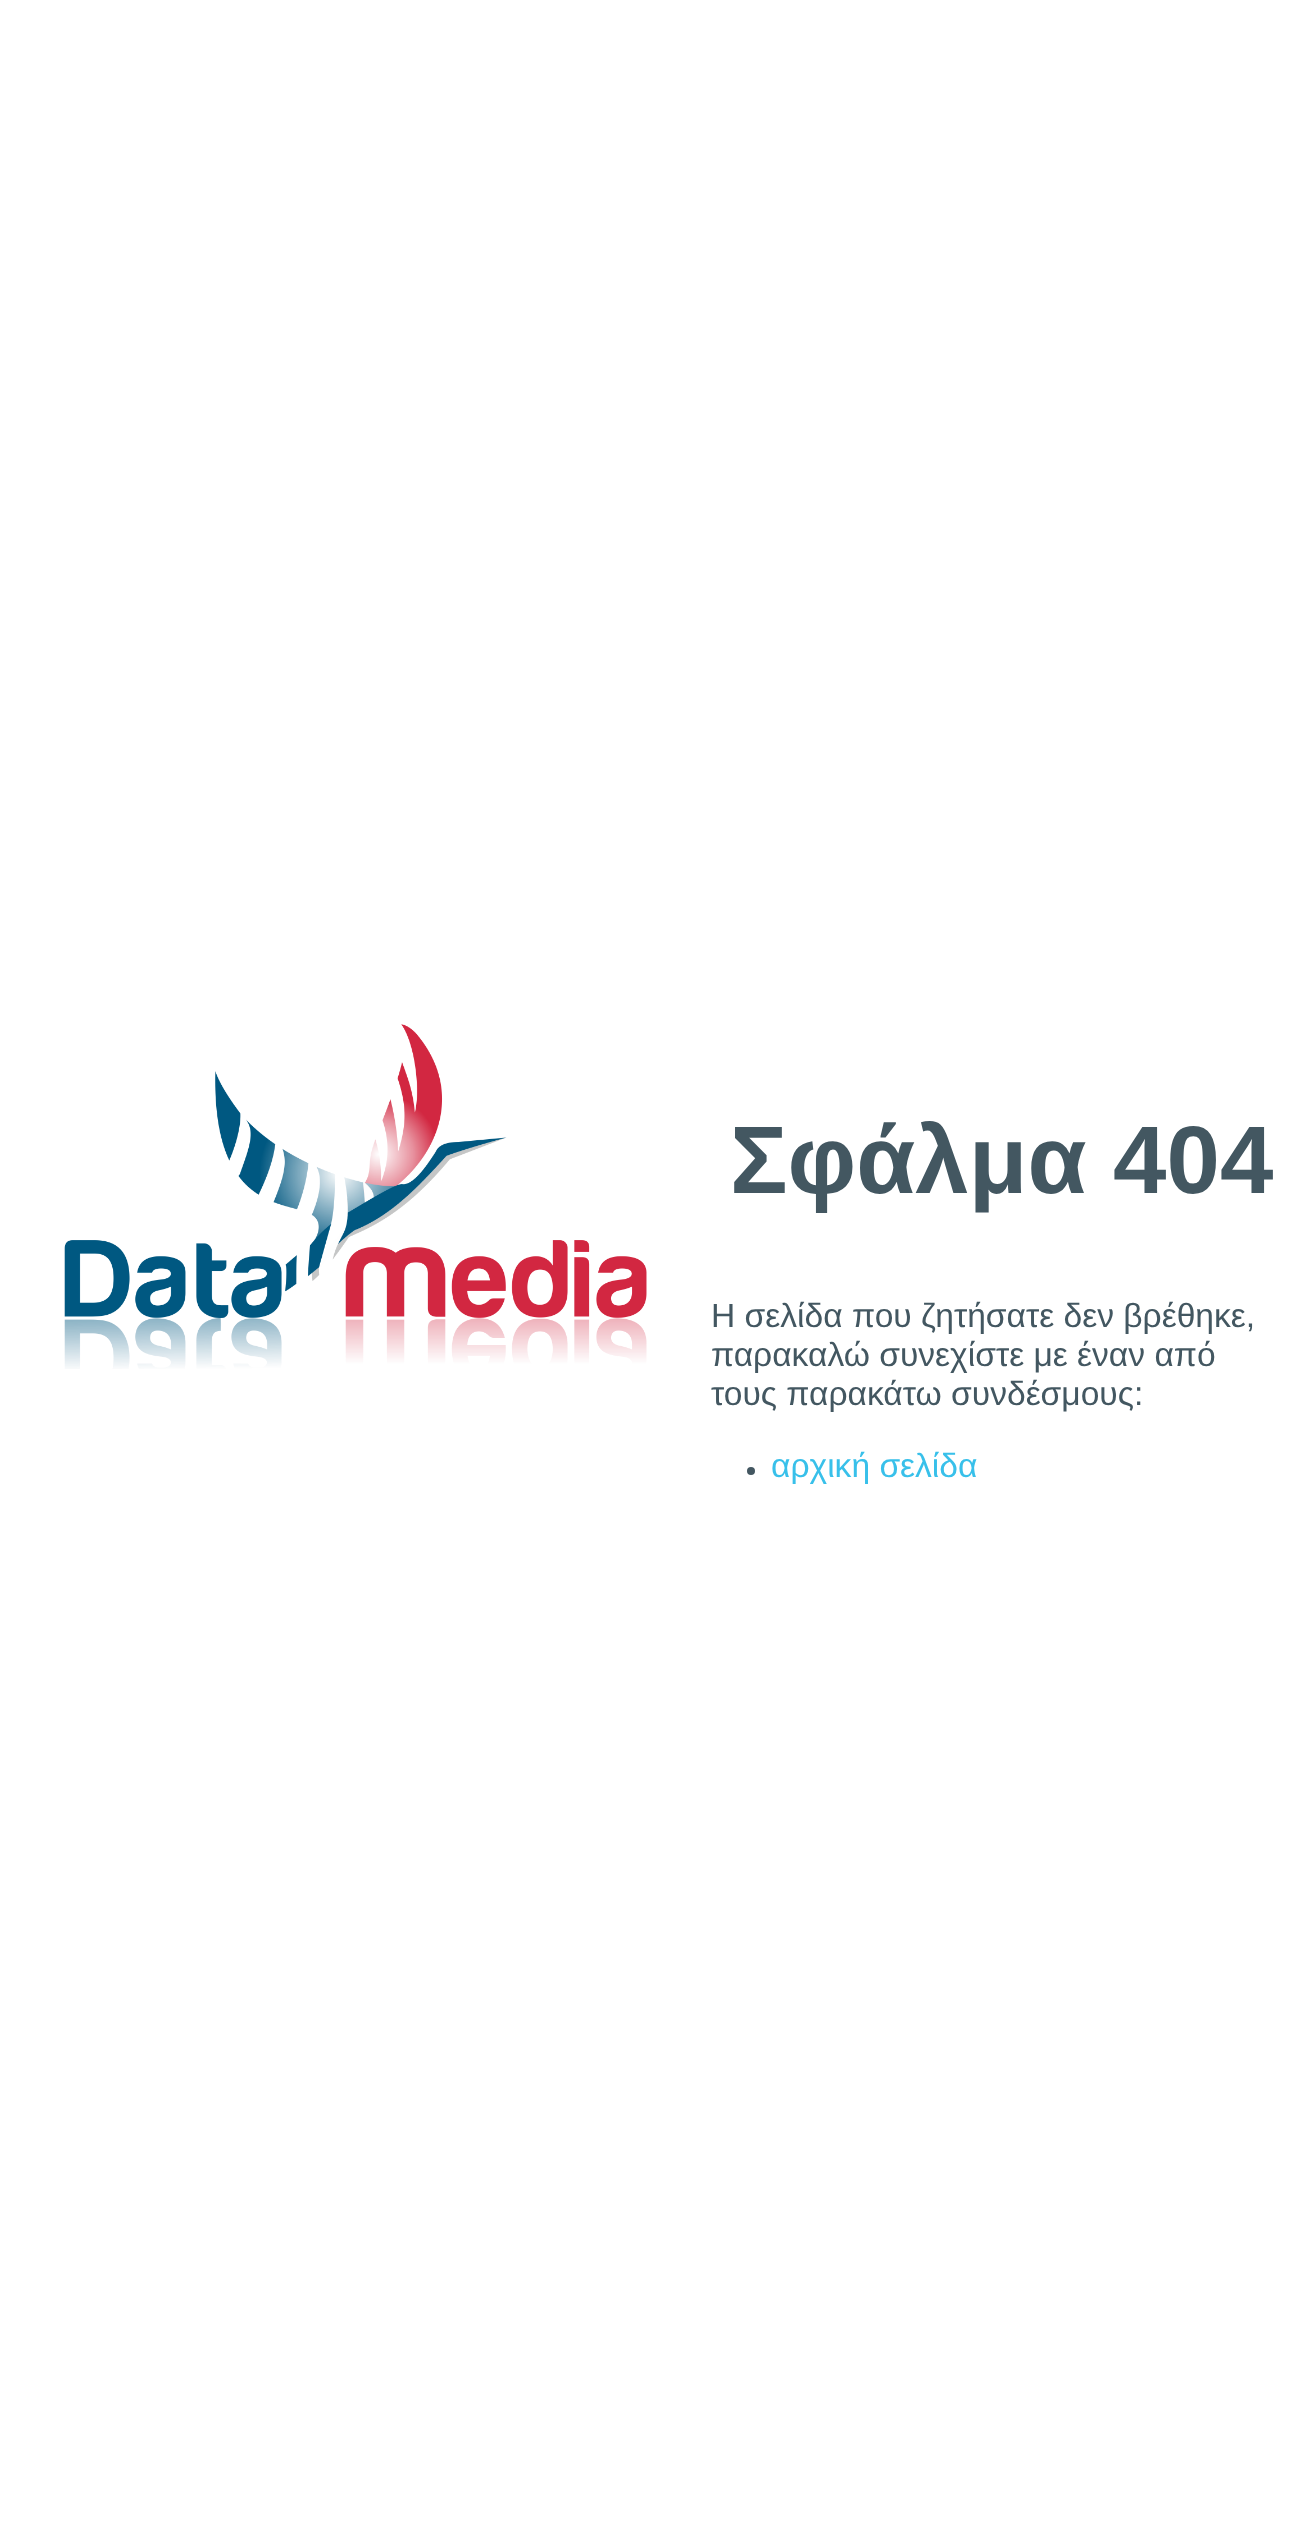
<?xml version="1.0" encoding="UTF-8"?>
<svg xmlns="http://www.w3.org/2000/svg" width="1292" height="2544">
    <rect width="100%" height="100%" fill="#FFFFFF"/>
    <image x="64" y="1024" width="583" height="345" href="img_01.png"/>
    <text x="730" y="1193" font-family="Liberation Sans" font-size="96" font-weight="700" fill="#435761">Σφάλμα 404</text>
    <text font-family="Liberation Sans" font-size="33.6" fill="#435761">
        <tspan x="711" y="1327">Η σελίδα που ζητήσατε δεν βρέθηκε,</tspan>
        <tspan x="711" y="1366">παρακαλώ συνεχίστε με έναν από</tspan>
        <tspan x="711" y="1405">τους παρακάτω συνδέσμους:</tspan>
    </text>
    <circle cx="751" cy="1471" r="4" fill="#435761"/>
    <text x="771" y="1477" font-family="Liberation Sans" font-size="33.6" fill="#38C0EA">αρχική σελίδα</text>
</svg>
